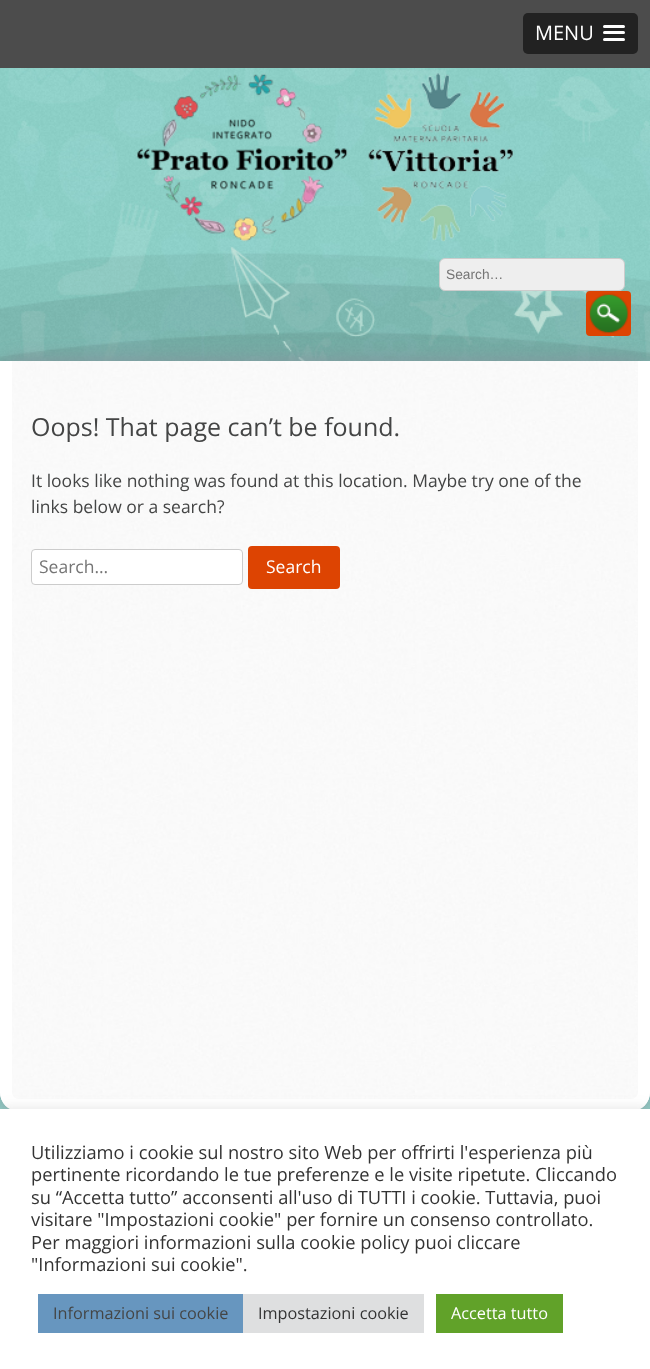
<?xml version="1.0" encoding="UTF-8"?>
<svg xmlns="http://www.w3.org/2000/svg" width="650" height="1369">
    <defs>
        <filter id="blur1" x="-50%" y="-200%" width="200%" height="500%"><feGaussianBlur stdDeviation="10"/></filter>
        <filter id="blur2" x="-50%" y="-200%" width="200%" height="500%"><feGaussianBlur stdDeviation="6"/></filter>
    </defs>
    <rect width="100%" height="100%" fill="#FFFFFF"/>
    <image x="0" y="68" width="650" height="1041" href="img_01.png"/>
    <rect x="0" y="0" width="650" height="68" fill="#4C4C4C"/>
    <rect x="523" y="13" width="115" height="41" rx="5" fill="#222222"/>
    <text x="535" y="40" font-family="Open Sans" font-size="20" fill="#FFFFFF">MENU</text>
    <rect x="603" y="25" width="22" height="3" rx="1.5" fill="#FFFFFF"/>
    <rect x="603" y="31" width="22" height="3" rx="1.5" fill="#FFFFFF"/>
    <rect x="603" y="38" width="22" height="3" rx="1.5" fill="#FFFFFF"/>
    <image x="0" y="246" width="650" height="115" href="img_02.png"/>
    <image x="136" y="73" width="378" height="169" href="img_03.png"/>
    <rect x="439.5" y="258.5" width="185" height="32" rx="5.5" fill="#EEEEEE" stroke="#CCCCCC"/>
    <text x="446" y="279" font-family="Liberation Sans" font-size="13.75" fill="#757575">Search…</text>
    <rect x="0" y="361" width="650" height="750" rx="19" fill="#85969F" filter="url(#blur1)"/>
    <rect x="586" y="291" width="45" height="45" rx="4" fill="#DD4402"/>
    <image x="589" y="293" width="40" height="41" href="img_04.png"/>
    <image x="0" y="361" width="650" height="748" href="img_05.png"/>
    <path d="M 0 361 H 650 V 1092 C 650 1103 642 1111 631 1111 H 19 C 8 1111 0 1103 0 1092 Z M 12 361 H 638 V 1092 C 638 1096 635 1099 631 1099 H 19 C 15 1099 12 1096 12 1092 Z" fill="#FFFFFF" fill-rule="evenodd"/>
    <text x="31" y="436" font-family="Open Sans" font-size="25" fill="#444545">Oops! That page can’t be found.</text>
    <text font-family="Open Sans" font-size="17.5" fill="#444545">
        <tspan x="31" y="487">It looks like nothing was found at this location. Maybe try one of the</tspan>
        <tspan x="31" y="513">links below or a search?</tspan>
    </text>
    <rect x="31.5" y="549.5" width="211" height="35" rx="3.5" fill="#FFFFFF" stroke="#CCCCCC"/>
    <text x="39" y="573" font-family="Open Sans" font-size="17.5" fill="#757575">Search…</text>
    <rect x="248" y="546" width="92" height="43" rx="4" fill="#DD4402"/>
    <text x="266" y="573" font-family="Open Sans" font-size="17.5" fill="#FFFFFF">Search</text>
    <rect x="0" y="1108" width="650" height="261" fill="#ACABAB" fill-opacity="0.3" filter="url(#blur2)"/>
    <rect x="0" y="1109" width="650" height="260" fill="#FFFFFF"/>
    <text font-family="Open Sans" font-size="18.3" fill="#333333">
        <tspan x="31" y="1159">Utilizziamo i cookie sul nostro sito Web per offrirti l'esperienza più</tspan>
        <tspan x="31" y="1181">pertinente ricordando le tue preferenze e le visite ripetute. Cliccando</tspan>
        <tspan x="31" y="1204">su “Accetta tutto” acconsenti all'uso di TUTTI i cookie. Tuttavia, puoi</tspan>
        <tspan x="31" y="1226">visitare "Impostazioni cookie" per fornire un consenso controllato.</tspan>
        <tspan x="31" y="1249">Per maggiori informazioni sulla cookie policy puoi cliccare</tspan>
        <tspan x="31" y="1271">"Informazioni sui cookie".</tspan>
    </text>
    <rect x="38" y="1294" width="205" height="39" fill="#6796BF"/>
    <text x="53" y="1319" font-family="Open Sans" font-size="16.25" fill="#444545">Informazioni sui cookie</text>
    <rect x="243" y="1294" width="181" height="39" fill="#DEDFE0"/>
    <text x="258" y="1319" font-family="Open Sans" font-size="16.25" fill="#333333">Impostazioni cookie</text>
    <rect x="436" y="1294" width="127" height="39" fill="#61A229"/>
    <text x="451" y="1319" font-family="Open Sans" font-size="16.25" fill="#FFFFFF">Accetta tutto</text>
</svg>
